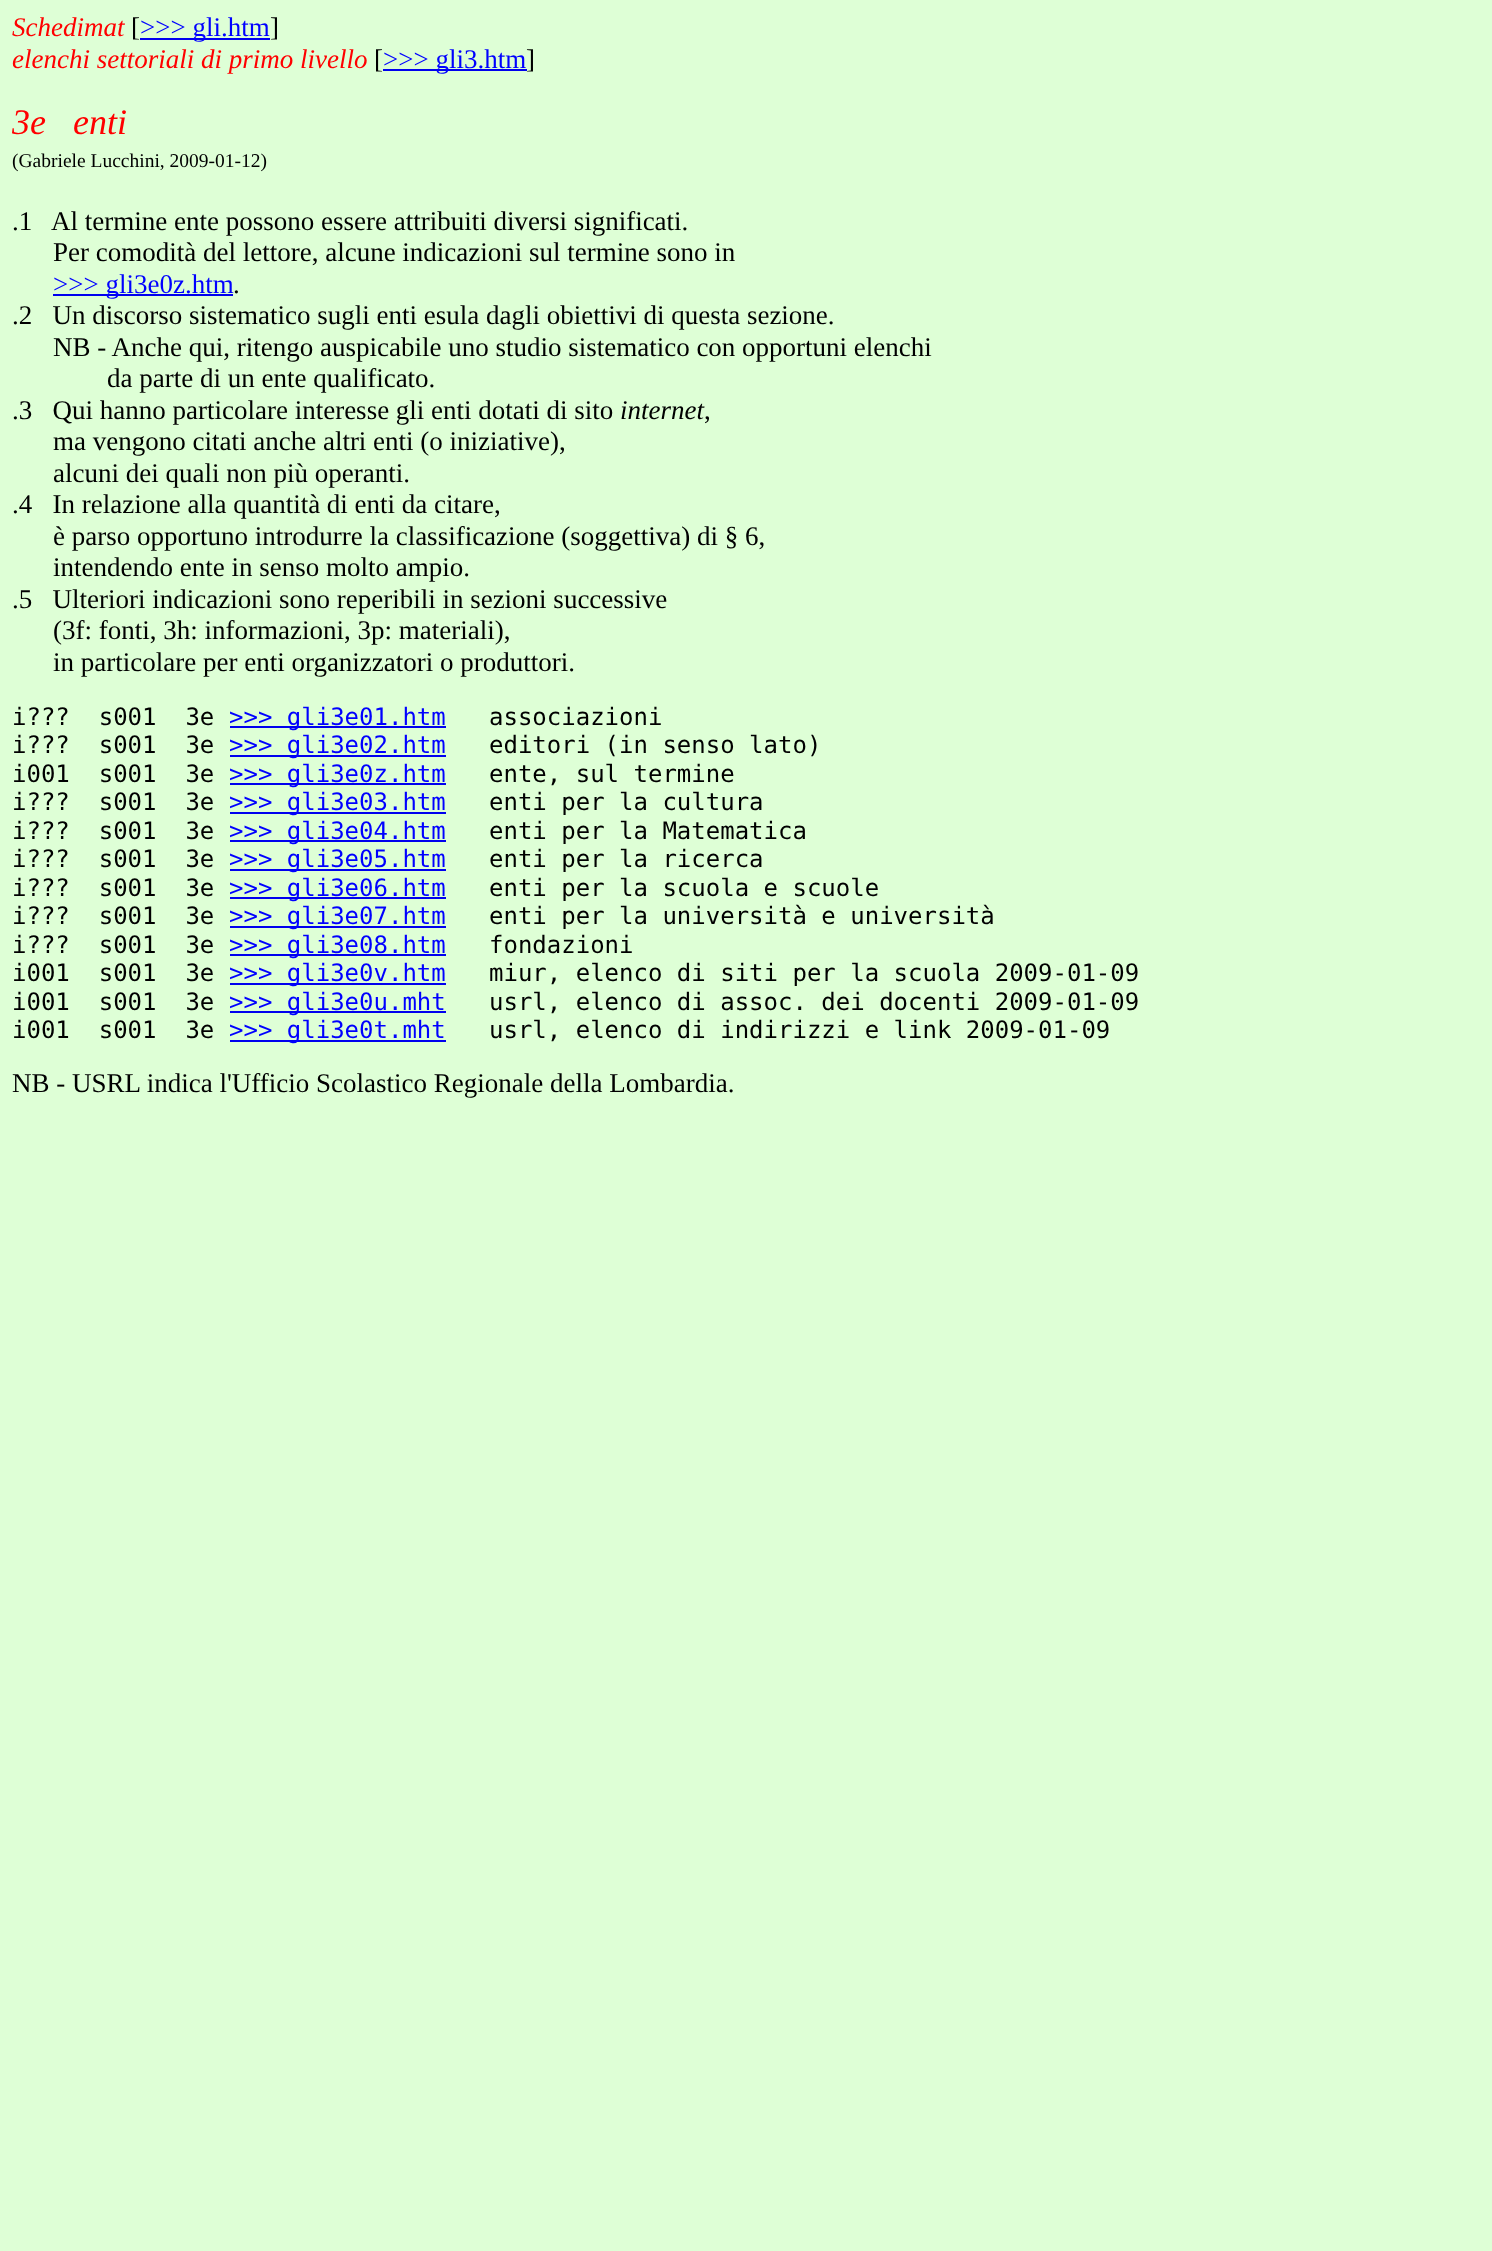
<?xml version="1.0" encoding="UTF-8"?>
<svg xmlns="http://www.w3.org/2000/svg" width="1492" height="2251">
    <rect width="100%" height="100%" fill="#DEFFD6"/>
    <text x="12" y="36" font-family="Liberation Serif" font-size="27" font-style="italic" fill="#FF0000">Schedimat</text>
    <text x="131" y="36" font-family="Liberation Serif" font-size="27" fill="#000000">[</text>
    <rect x="140" y="38" width="130" height="2" fill="#0000EE"/>
    <text x="140" y="36" font-family="Liberation Serif" font-size="27" fill="#0000FF">&gt;&gt;&gt; gli.htm</text>
    <text x="270" y="36" font-family="Liberation Serif" font-size="27" fill="#000000">]</text>
    <text x="12" y="68" font-family="Liberation Serif" font-size="27" font-style="italic" fill="#FF0000">elenchi settoriali di primo livello</text>
    <text x="374" y="68" font-family="Liberation Serif" font-size="27" fill="#000000">[</text>
    <rect x="383" y="69" width="144" height="2" fill="#0000EE"/>
    <text x="383" y="68" font-family="Liberation Serif" font-size="27" fill="#0000FF">&gt;&gt;&gt; gli3.htm</text>
    <text x="526" y="68" font-family="Liberation Serif" font-size="27" fill="#000000">]</text>
    <text x="12" y="134" font-family="Liberation Serif" font-size="36" font-style="italic" fill="#FF0000" xml:space="preserve">3e   enti</text>
    <text x="12" y="167" font-family="Liberation Serif" font-size="19.5" fill="#000000">(Gabriele Lucchini, 2009-01-12)</text>
    <text x="12" y="230" font-family="Liberation Serif" font-size="27" fill="#000000" xml:space="preserve">.1   Al termine ente possono essere attribuiti diversi significati.</text>
    <text x="53" y="261" font-family="Liberation Serif" font-size="27" fill="#000000">Per comodità del lettore, alcune indicazioni sul termine sono in</text>
    <rect x="53" y="294" width="180" height="2" fill="#0000EE"/>
    <text x="53" y="293" font-family="Liberation Serif" font-size="27" fill="#0000FF">&gt;&gt;&gt; gli3e0z.htm</text>
    <text x="233" y="293" font-family="Liberation Serif" font-size="27" fill="#000000">.</text>
    <text x="12" y="324" font-family="Liberation Serif" font-size="27" fill="#000000" xml:space="preserve">.2   Un discorso sistematico sugli enti esula dagli obiettivi di questa sezione.</text>
    <text x="53" y="356" font-family="Liberation Serif" font-size="27" fill="#000000">NB - Anche qui, ritengo auspicabile uno studio sistematico con opportuni elenchi</text>
    <text x="107" y="387" font-family="Liberation Serif" font-size="27" fill="#000000">da parte di un ente qualificato.</text>
    <text x="12" y="419" font-family="Liberation Serif" font-size="27" fill="#000000" xml:space="preserve">.3   Qui hanno particolare interesse gli enti dotati di sito</text>
    <text x="620" y="419" font-family="Liberation Serif" font-size="27" font-style="italic" fill="#000000">internet</text>
    <text x="704" y="419" font-family="Liberation Serif" font-size="27" fill="#000000">,</text>
    <text font-family="Liberation Serif" font-size="27" fill="#000000">
        <tspan x="53" y="450">ma vengono citati anche altri enti (o iniziative),</tspan>
        <tspan x="53" y="482">alcuni dei quali non più operanti.</tspan>
    </text>
    <text x="12" y="513" font-family="Liberation Serif" font-size="27" fill="#000000" xml:space="preserve">.4   In relazione alla quantità di enti da citare,</text>
    <text font-family="Liberation Serif" font-size="27" fill="#000000">
        <tspan x="53" y="545">è parso opportuno introdurre la classificazione (soggettiva) di § 6,</tspan>
        <tspan x="53" y="576">intendendo ente in senso molto ampio.</tspan>
    </text>
    <text x="12" y="608" font-family="Liberation Serif" font-size="27" fill="#000000" xml:space="preserve">.5   Ulteriori indicazioni sono reperibili in sezioni successive</text>
    <text font-family="Liberation Serif" font-size="27" fill="#000000">
        <tspan x="53" y="639">(3f: fonti, 3h: informazioni, 3p: materiali),</tspan>
        <tspan x="53" y="671">in particolare per enti organizzatori o produttori.</tspan>
    </text>
    <text x="12" y="725" font-family="DejaVu Sans Mono" font-size="24" fill="#000000" xml:space="preserve">i???  s001  3e</text>
    <rect x="230" y="726" width="216" height="2" fill="#0000EE"/>
    <text x="229" y="725" font-family="DejaVu Sans Mono" font-size="24" fill="#0000FF">&gt;&gt;&gt; gli3e01.htm</text>
    <text x="489" y="725" font-family="DejaVu Sans Mono" font-size="24" fill="#000000">associazioni</text>
    <text x="12" y="753" font-family="DejaVu Sans Mono" font-size="24" fill="#000000" xml:space="preserve">i???  s001  3e</text>
    <rect x="230" y="755" width="216" height="2" fill="#0000EE"/>
    <text x="229" y="753" font-family="DejaVu Sans Mono" font-size="24" fill="#0000FF">&gt;&gt;&gt; gli3e02.htm</text>
    <text x="489" y="753" font-family="DejaVu Sans Mono" font-size="24" fill="#000000">editori (in senso lato)</text>
    <text x="12" y="782" font-family="DejaVu Sans Mono" font-size="24" fill="#000000" xml:space="preserve">i001  s001  3e</text>
    <rect x="230" y="783" width="216" height="2" fill="#0000EE"/>
    <text x="229" y="782" font-family="DejaVu Sans Mono" font-size="24" fill="#0000FF">&gt;&gt;&gt; gli3e0z.htm</text>
    <text x="489" y="782" font-family="DejaVu Sans Mono" font-size="24" fill="#000000">ente, sul termine</text>
    <text x="12" y="810" font-family="DejaVu Sans Mono" font-size="24" fill="#000000" xml:space="preserve">i???  s001  3e</text>
    <rect x="230" y="812" width="216" height="2" fill="#0000EE"/>
    <text x="229" y="810" font-family="DejaVu Sans Mono" font-size="24" fill="#0000FF">&gt;&gt;&gt; gli3e03.htm</text>
    <text x="489" y="810" font-family="DejaVu Sans Mono" font-size="24" fill="#000000">enti per la cultura</text>
    <text x="12" y="839" font-family="DejaVu Sans Mono" font-size="24" fill="#000000" xml:space="preserve">i???  s001  3e</text>
    <rect x="230" y="840" width="216" height="2" fill="#0000EE"/>
    <text x="229" y="839" font-family="DejaVu Sans Mono" font-size="24" fill="#0000FF">&gt;&gt;&gt; gli3e04.htm</text>
    <text x="489" y="839" font-family="DejaVu Sans Mono" font-size="24" fill="#000000">enti per la Matematica</text>
    <text x="12" y="867" font-family="DejaVu Sans Mono" font-size="24" fill="#000000" xml:space="preserve">i???  s001  3e</text>
    <rect x="230" y="869" width="216" height="2" fill="#0000EE"/>
    <text x="229" y="867" font-family="DejaVu Sans Mono" font-size="24" fill="#0000FF">&gt;&gt;&gt; gli3e05.htm</text>
    <text x="489" y="867" font-family="DejaVu Sans Mono" font-size="24" fill="#000000">enti per la ricerca</text>
    <text x="12" y="896" font-family="DejaVu Sans Mono" font-size="24" fill="#000000" xml:space="preserve">i???  s001  3e</text>
    <rect x="230" y="897" width="216" height="2" fill="#0000EE"/>
    <text x="229" y="896" font-family="DejaVu Sans Mono" font-size="24" fill="#0000FF">&gt;&gt;&gt; gli3e06.htm</text>
    <text x="489" y="896" font-family="DejaVu Sans Mono" font-size="24" fill="#000000">enti per la scuola e scuole</text>
    <text x="12" y="924" font-family="DejaVu Sans Mono" font-size="24" fill="#000000" xml:space="preserve">i???  s001  3e</text>
    <rect x="230" y="926" width="216" height="2" fill="#0000EE"/>
    <text x="229" y="924" font-family="DejaVu Sans Mono" font-size="24" fill="#0000FF">&gt;&gt;&gt; gli3e07.htm</text>
    <text x="489" y="924" font-family="DejaVu Sans Mono" font-size="24" fill="#000000">enti per la università e università</text>
    <text x="12" y="953" font-family="DejaVu Sans Mono" font-size="24" fill="#000000" xml:space="preserve">i???  s001  3e</text>
    <rect x="230" y="954" width="216" height="2" fill="#0000EE"/>
    <text x="229" y="953" font-family="DejaVu Sans Mono" font-size="24" fill="#0000FF">&gt;&gt;&gt; gli3e08.htm</text>
    <text x="489" y="953" font-family="DejaVu Sans Mono" font-size="24" fill="#000000">fondazioni</text>
    <text x="12" y="981" font-family="DejaVu Sans Mono" font-size="24" fill="#000000" xml:space="preserve">i001  s001  3e</text>
    <rect x="230" y="983" width="216" height="2" fill="#0000EE"/>
    <text x="229" y="981" font-family="DejaVu Sans Mono" font-size="24" fill="#0000FF">&gt;&gt;&gt; gli3e0v.htm</text>
    <text x="489" y="981" font-family="DejaVu Sans Mono" font-size="24" fill="#000000">miur, elenco di siti per la scuola 2009-01-09</text>
    <text x="12" y="1010" font-family="DejaVu Sans Mono" font-size="24" fill="#000000" xml:space="preserve">i001  s001  3e</text>
    <rect x="230" y="1011" width="216" height="2" fill="#0000EE"/>
    <text x="229" y="1010" font-family="DejaVu Sans Mono" font-size="24" fill="#0000FF">&gt;&gt;&gt; gli3e0u.mht</text>
    <text x="489" y="1010" font-family="DejaVu Sans Mono" font-size="24" fill="#000000">usrl, elenco di assoc. dei docenti 2009-01-09</text>
    <text x="12" y="1038" font-family="DejaVu Sans Mono" font-size="24" fill="#000000" xml:space="preserve">i001  s001  3e</text>
    <rect x="230" y="1040" width="216" height="2" fill="#0000EE"/>
    <text x="229" y="1038" font-family="DejaVu Sans Mono" font-size="24" fill="#0000FF">&gt;&gt;&gt; gli3e0t.mht</text>
    <text x="489" y="1038" font-family="DejaVu Sans Mono" font-size="24" fill="#000000">usrl, elenco di indirizzi e link 2009-01-09</text>
    <text x="12" y="1092" font-family="Liberation Serif" font-size="27" fill="#000000">NB - USRL indica l'Ufficio Scolastico Regionale della Lombardia.</text>
</svg>
